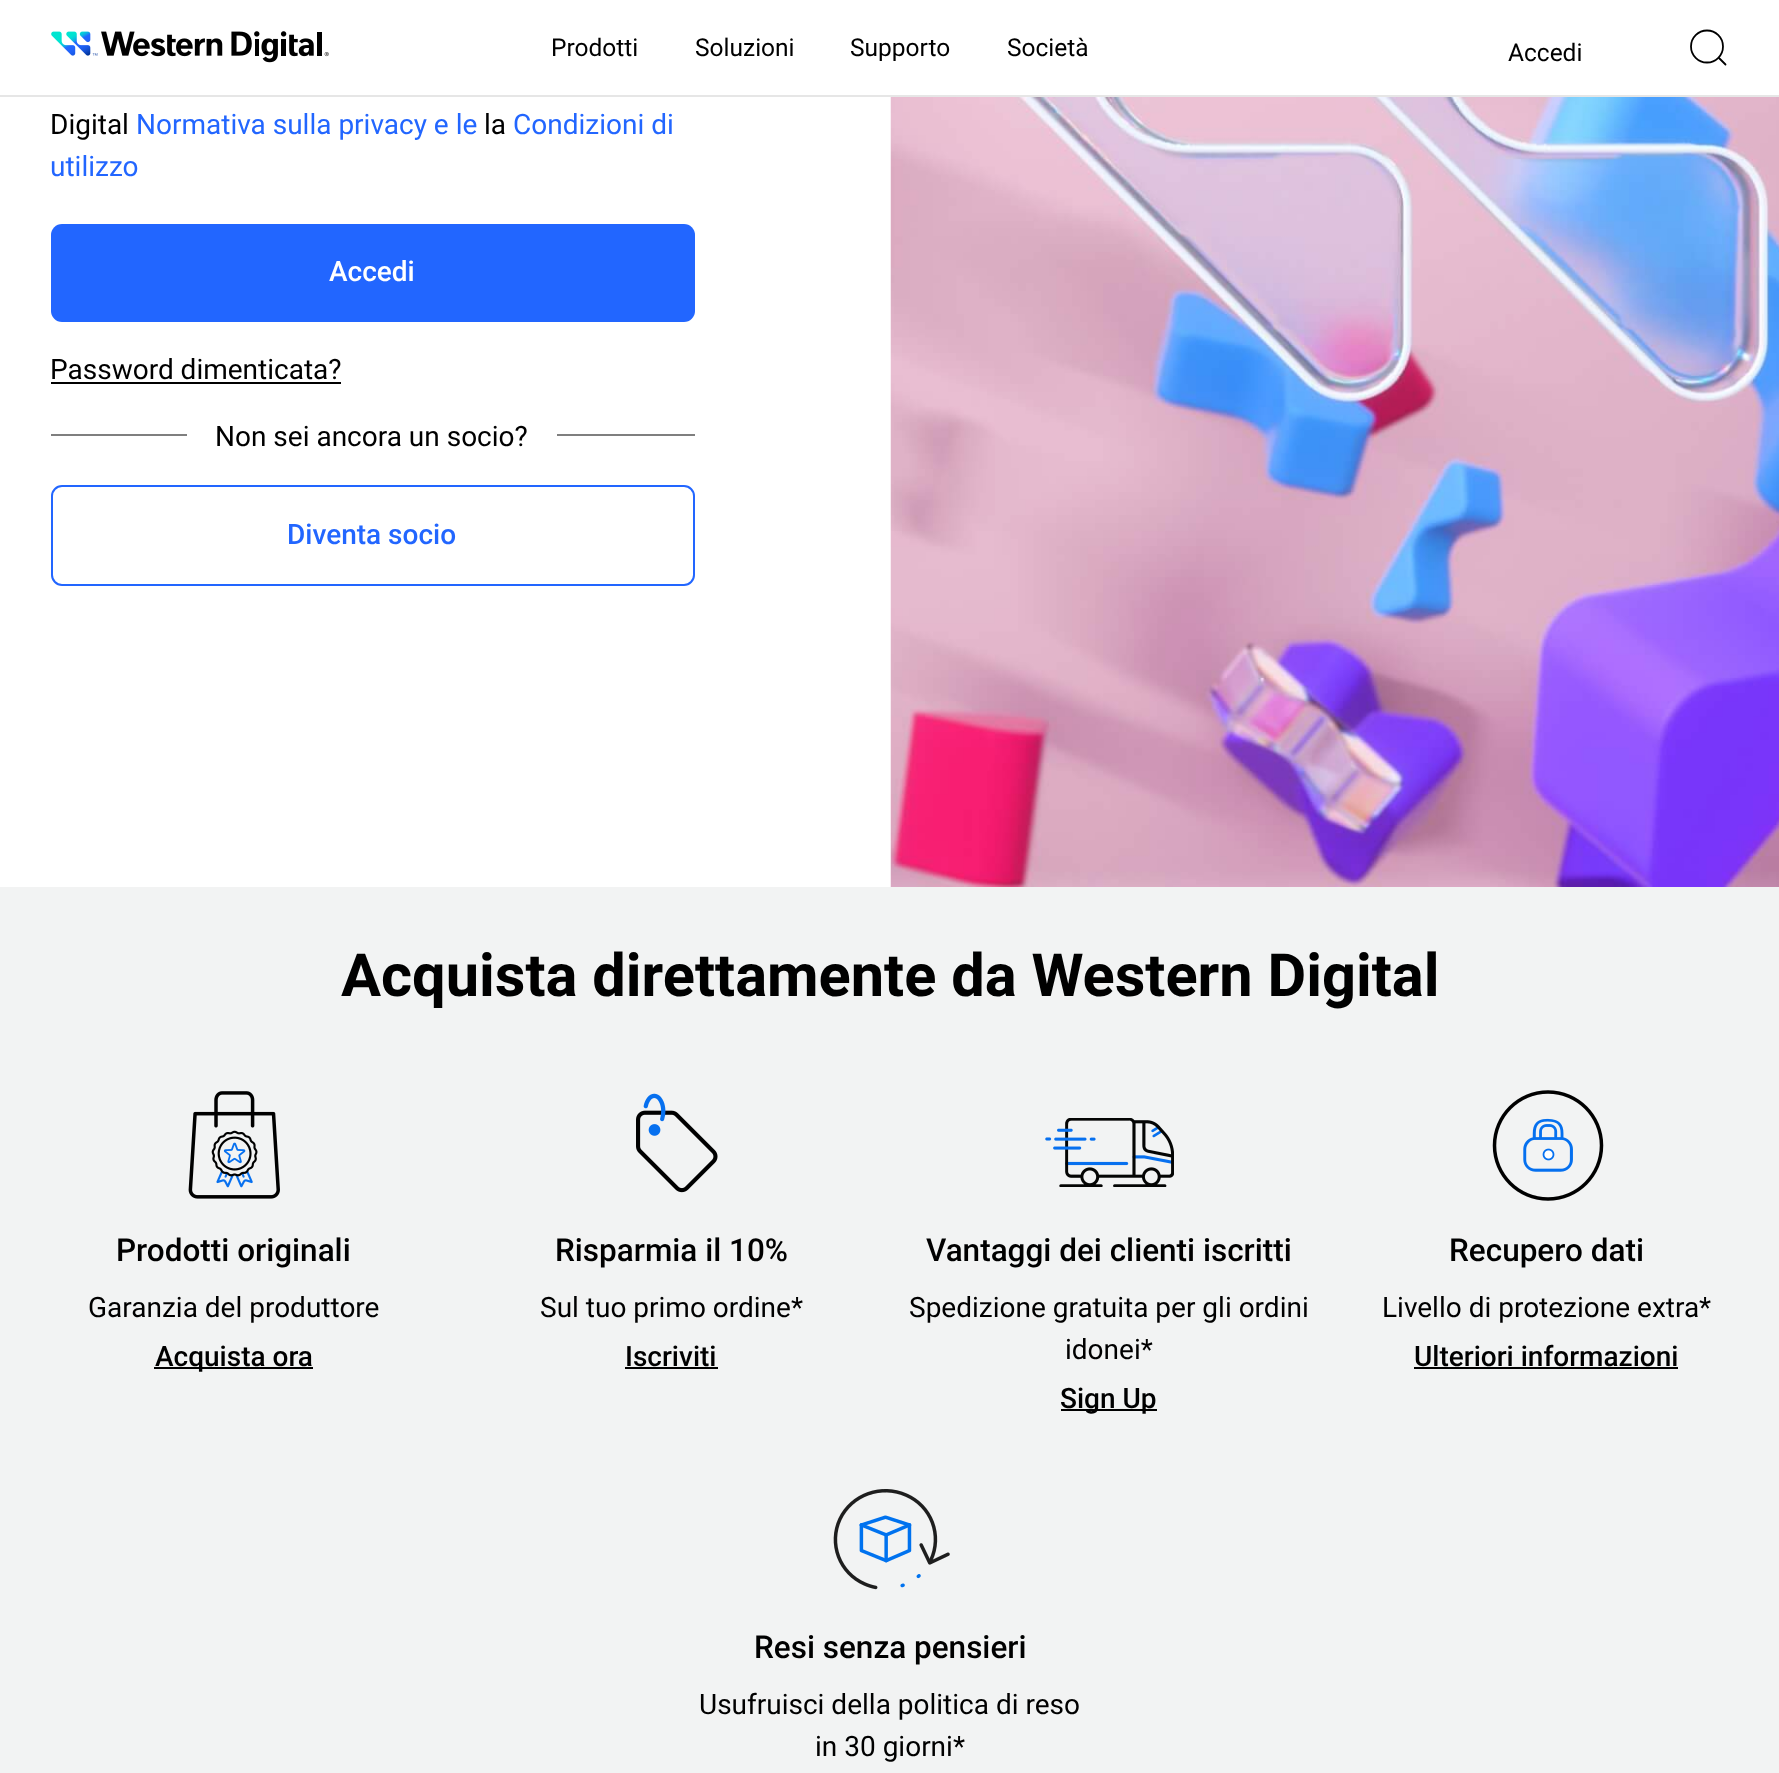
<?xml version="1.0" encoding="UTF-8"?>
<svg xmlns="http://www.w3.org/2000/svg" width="1779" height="1773">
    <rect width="100%" height="100%" fill="#FFFFFF"/>
    <rect x="0" y="95" width="1779" height="2" fill="#E6E6E6"/>
    <image x="51" y="31" width="278" height="32" href="img_01.png"/>
    <text x="551" y="56" font-family="Roboto" font-size="24.5" fill="#000000">Prodotti</text>
    <text x="695" y="56" font-family="Roboto" font-size="24.5" fill="#000000">Soluzioni</text>
    <text x="850" y="56" font-family="Roboto" font-size="24.5" fill="#000000">Supporto</text>
    <text x="1007" y="56" font-family="Roboto" font-size="24.5" fill="#000000">Società</text>
    <text x="1508" y="61" font-family="Roboto" font-size="24.5" fill="#000000">Accedi</text>
    <circle cx="1707" cy="46.5" r="16" fill="none" stroke="#000000" stroke-width="1.8"/>
    <path d="M 1725.5 64.5 L 1719 58" fill="none" stroke="#000000" stroke-width="1.8" stroke-linecap="round"/>
    <text x="50" y="134" font-family="Roboto" font-size="28" fill="#000000">Digital</text>
    <text x="136" y="134" font-family="Roboto" font-size="28" fill="#2266FF">Normativa sulla privacy e le</text>
    <text x="484" y="134" font-family="Roboto" font-size="28" fill="#000000">la</text>
    <text x="513" y="134" font-family="Roboto" font-size="28" fill="#2266FF">Condizioni di</text>
    <text x="50" y="176" font-family="Roboto" font-size="28" fill="#2266FF">utilizzo</text>
    <rect x="51" y="224" width="644" height="98" rx="11" fill="#2266FF"/>
    <text x="329" y="281" font-family="Roboto" font-size="28" font-weight="500" fill="#FFFFFF">Accedi</text>
    <text x="50" y="379" font-family="Roboto" font-size="28" fill="#000000">Password dimenticata?</text>
    <rect x="51" y="382" width="290" height="2" fill="#000000"/>
    <rect x="51" y="434" width="644" height="2" fill="#7F7F7F"/>
    <rect x="187" y="434" width="370" height="2" fill="#FFFFFF"/>
    <text x="215" y="446" font-family="Roboto" font-size="28" fill="#000000">Non sei ancora un socio?</text>
    <rect x="52" y="486" width="642" height="99" rx="10" fill="none" stroke="#2266FF" stroke-width="2"/>
    <text x="287" y="544" font-family="Roboto" font-size="28" font-weight="500" fill="#2266FF">Diventa socio</text>
    <image x="890" y="97" width="889" height="790" href="img_02.png"/>
    <rect x="0" y="887" width="1779" height="886" fill="#F2F3F3"/>
    <text x="341" y="996" font-family="Roboto" font-size="59.5" font-weight="700" fill="#000000">Acquista direttamente da Western Digital</text>
    <image x="188" y="1091" width="92" height="108" href="img_03.png"/>
    <text x="116" y="1261" font-family="Roboto" font-size="31.5" font-weight="500" fill="#000000">Prodotti originali</text>
    <text x="88" y="1317" font-family="Roboto" font-size="28" fill="#000000">Garanzia del produttore</text>
    <rect x="154" y="1367" width="159" height="2" fill="#000000"/>
    <text x="155" y="1366" font-family="Roboto" font-size="28" font-weight="500" fill="#000000">Acquista ora</text>
    <image x="636" y="1093" width="82" height="100" href="img_04.png"/>
    <text x="555" y="1261" font-family="Roboto" font-size="31.5" font-weight="500" fill="#000000">Risparmia il 10%</text>
    <text x="540" y="1317" font-family="Roboto" font-size="28" fill="#000000">Sul tuo primo ordine*</text>
    <text x="625" y="1366" font-family="Roboto" font-size="28" font-weight="500" fill="#000000">Iscriviti</text>
    <rect x="625" y="1367" width="93" height="2" fill="#000000"/>
    <image x="1045" y="1118" width="129" height="69" href="img_05.png"/>
    <text x="926" y="1261" font-family="Roboto" font-size="31.5" font-weight="500" fill="#000000">Vantaggi dei clienti iscritti</text>
    <text x="909" y="1317" font-family="Roboto" font-size="28" fill="#000000">Spedizione gratuita per gli ordini</text>
    <text x="1065" y="1359" font-family="Roboto" font-size="28" fill="#000000">idonei*</text>
    <rect x="1061" y="1409" width="96" height="2" fill="#000000"/>
    <text x="1060" y="1408" font-family="Roboto" font-size="28" font-weight="500" fill="#000000">Sign Up</text>
    <image x="1492" y="1090" width="112" height="111" href="img_06.png"/>
    <text x="1449" y="1261" font-family="Roboto" font-size="31.5" font-weight="500" fill="#000000">Recupero dati</text>
    <text x="1382" y="1317" font-family="Roboto" font-size="28" fill="#000000">Livello di protezione extra*</text>
    <text x="1414" y="1366" font-family="Roboto" font-size="28" font-weight="500" fill="#000000">Ulteriori informazioni</text>
    <rect x="1414" y="1367" width="264" height="2" fill="#000000"/>
    <image x="833" y="1489" width="117" height="101" href="img_07.png"/>
    <text x="754" y="1658" font-family="Roboto" font-size="31.5" font-weight="500" fill="#000000">Resi senza pensieri</text>
    <text x="699" y="1714" font-family="Roboto" font-size="28" fill="#000000">Usufruisci della politica di reso</text>
    <text x="815" y="1756" font-family="Roboto" font-size="28" fill="#000000">in 30 giorni*</text>
</svg>
